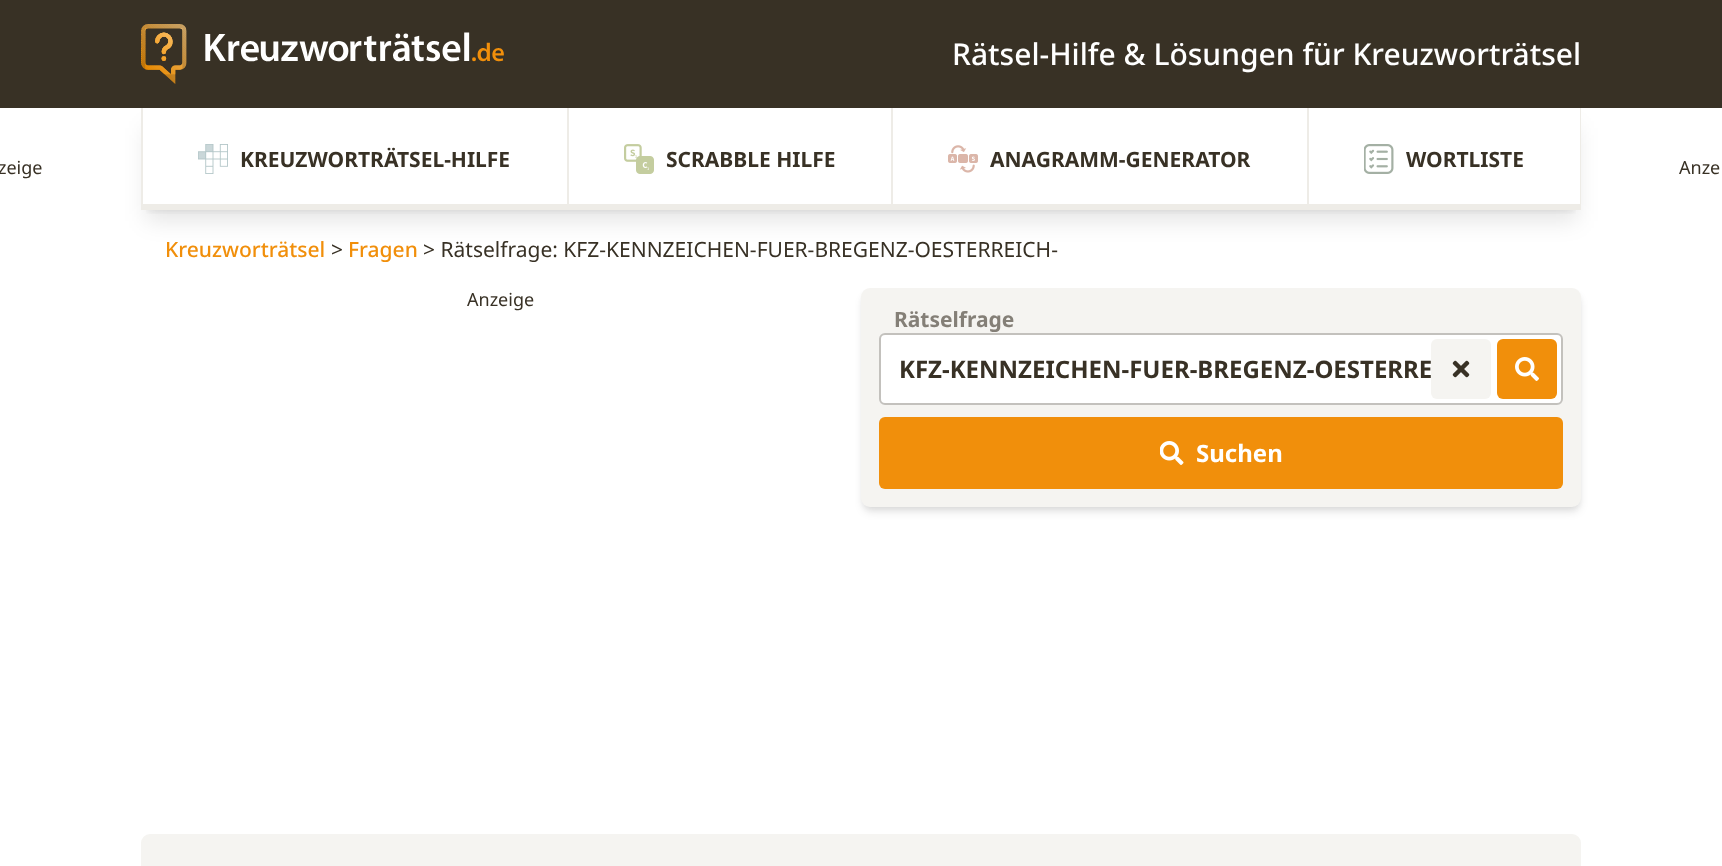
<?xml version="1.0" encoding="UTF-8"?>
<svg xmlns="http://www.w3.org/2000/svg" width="1722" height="866">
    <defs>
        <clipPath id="clip1"><rect x="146" y="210" width="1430" height="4"/></clipPath>
        <filter id="blur1" x="-50%" y="-200%" width="200%" height="500%"><feGaussianBlur stdDeviation="4.5"/></filter>
        <clipPath id="clip2"><path d="M 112 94 H 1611 V 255 H 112 Z M 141 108 H 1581 V 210 H 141 Z" clip-rule="evenodd"/></clipPath>
        <filter id="blur2" x="-50%" y="-200%" width="200%" height="500%"><feGaussianBlur stdDeviation="11"/></filter>
        <filter id="blur3" x="-50%" y="-200%" width="200%" height="500%"><feGaussianBlur stdDeviation="3"/></filter>
    </defs>
    <rect width="100%" height="100%" fill="#FFFFFF"/>
    <rect x="0" y="0" width="1722" height="108" fill="#383125"/>
    <image x="141" y="24" width="363" height="60" href="img_01.png"/>
    <text x="952" y="65" font-family="Noto Sans" font-size="30" font-weight="500" fill="#FFFFFF">Rätsel-Hilfe &amp; Lösungen für Kreuzworträtsel</text>
    <g clip-path="url(#clip1)">
        <rect x="147" y="120" width="1428" height="90" fill="#000000" fill-opacity="0.1" filter="url(#blur1)"/>
    </g>
    <g clip-path="url(#clip2)">
        <rect x="146" y="128" width="1431" height="93" fill="#000000" fill-opacity="0.1" filter="url(#blur2)"/>
    </g>
    <rect x="141" y="108" width="2" height="102" fill="#EEECE7"/>
    <image x="198" y="144" width="30" height="30" href="img_02.png"/>
    <text x="240" y="167" font-family="Noto Sans" font-size="21" font-weight="700" fill="#383125">KREUZWORTRÄTSEL-HILFE</text>
    <rect x="143" y="204" width="424" height="6" fill="#EEECE7"/>
    <rect x="567" y="108" width="2" height="102" fill="#EEECE7"/>
    <image x="624" y="144" width="30" height="30" href="img_03.png"/>
    <text x="666" y="167" font-family="Noto Sans" font-size="21" font-weight="700" fill="#383125">SCRABBLE HILFE</text>
    <rect x="569" y="204" width="322" height="6" fill="#EEECE7"/>
    <rect x="891" y="108" width="2" height="102" fill="#EEECE7"/>
    <image x="948" y="145" width="30" height="28" href="img_04.png"/>
    <text x="990" y="167" font-family="Noto Sans" font-size="21" font-weight="700" fill="#383125">ANAGRAMM-GENERATOR</text>
    <rect x="893" y="204" width="414" height="6" fill="#EEECE7"/>
    <rect x="1580" y="108" width="1" height="102" fill="#EEECE7"/>
    <rect x="1307" y="108" width="2" height="102" fill="#EEECE7"/>
    <image x="1364" y="144" width="30" height="30" href="img_05.png"/>
    <text x="1406" y="167" font-family="Noto Sans" font-size="21" font-weight="700" fill="#383125">WORTLISTE</text>
    <rect x="1308" y="204" width="272" height="6" fill="#EEECE7"/>
    <text x="-2" y="174" font-family="Noto Sans" font-size="18" fill="#383125">zeige</text>
    <text x="1679" y="174" font-family="Noto Sans" font-size="18" fill="#383125">Anze</text>
    <text x="165" y="257" font-family="Noto Sans" font-size="21" font-weight="500" fill="#F18F0B">Kreuzworträtsel</text>
    <text x="331" y="257" font-family="Noto Sans" font-size="21" fill="#383125">&gt;</text>
    <text x="348" y="257" font-family="Noto Sans" font-size="21" font-weight="500" fill="#F18F0B">Fragen</text>
    <text x="423" y="257" font-family="Noto Sans" font-size="21" fill="#383125">&gt; Rätselfrage: KFZ-KENNZEICHEN-FUER-BREGENZ-OESTERREICH-</text>
    <text x="467" y="306" font-family="Noto Sans" font-size="18" fill="#383125">Anzeige</text>
    <rect x="864" y="294" width="714" height="213" rx="6" fill="#000000" fill-opacity="0.1" filter="url(#blur3)"/>
    <rect x="863" y="296" width="717" height="216" rx="8" fill="#000000" fill-opacity="0.1" filter="url(#blur1)"/>
    <rect x="861" y="288" width="720" height="219" rx="9" fill="#F5F4F1"/>
    <text x="894" y="327" font-family="Noto Sans" font-size="21" font-weight="700" fill="#847F77">Rätselfrage</text>
    <rect x="879" y="333" width="684" height="72" rx="6" fill="#FFFFFF"/>
    <rect x="880" y="334" width="682" height="70" rx="5" fill="none" stroke="#383125" stroke-opacity="0.3" stroke-width="2"/>
    <text x="899" y="378" font-family="Noto Sans" font-size="24" font-weight="700" fill="#383125">KFZ-KENNZEICHEN-FUER-BREGENZ-OESTERRE</text>
    <rect x="1431" y="339" width="60" height="60" rx="6" fill="#F5F4F1"/>
    <image x="1452" y="360" width="18" height="18" href="img_06.png"/>
    <rect x="1497" y="339" width="60" height="60" rx="6" fill="#F18F0B"/>
    <image x="1515" y="357" width="24" height="24" href="img_07.png"/>
    <rect x="879" y="417" width="684" height="72" rx="6" fill="#F18F0B"/>
    <image x="1160" y="441" width="24" height="24" href="img_08.png"/>
    <text x="1196" y="462" font-family="Noto Sans" font-size="24" font-weight="700" fill="#FFFFFF">Suchen</text>
    <rect x="142" y="835" width="1438" height="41" rx="8" fill="#F5F4F1" stroke="#F5F4F1" stroke-width="2"/>
</svg>
